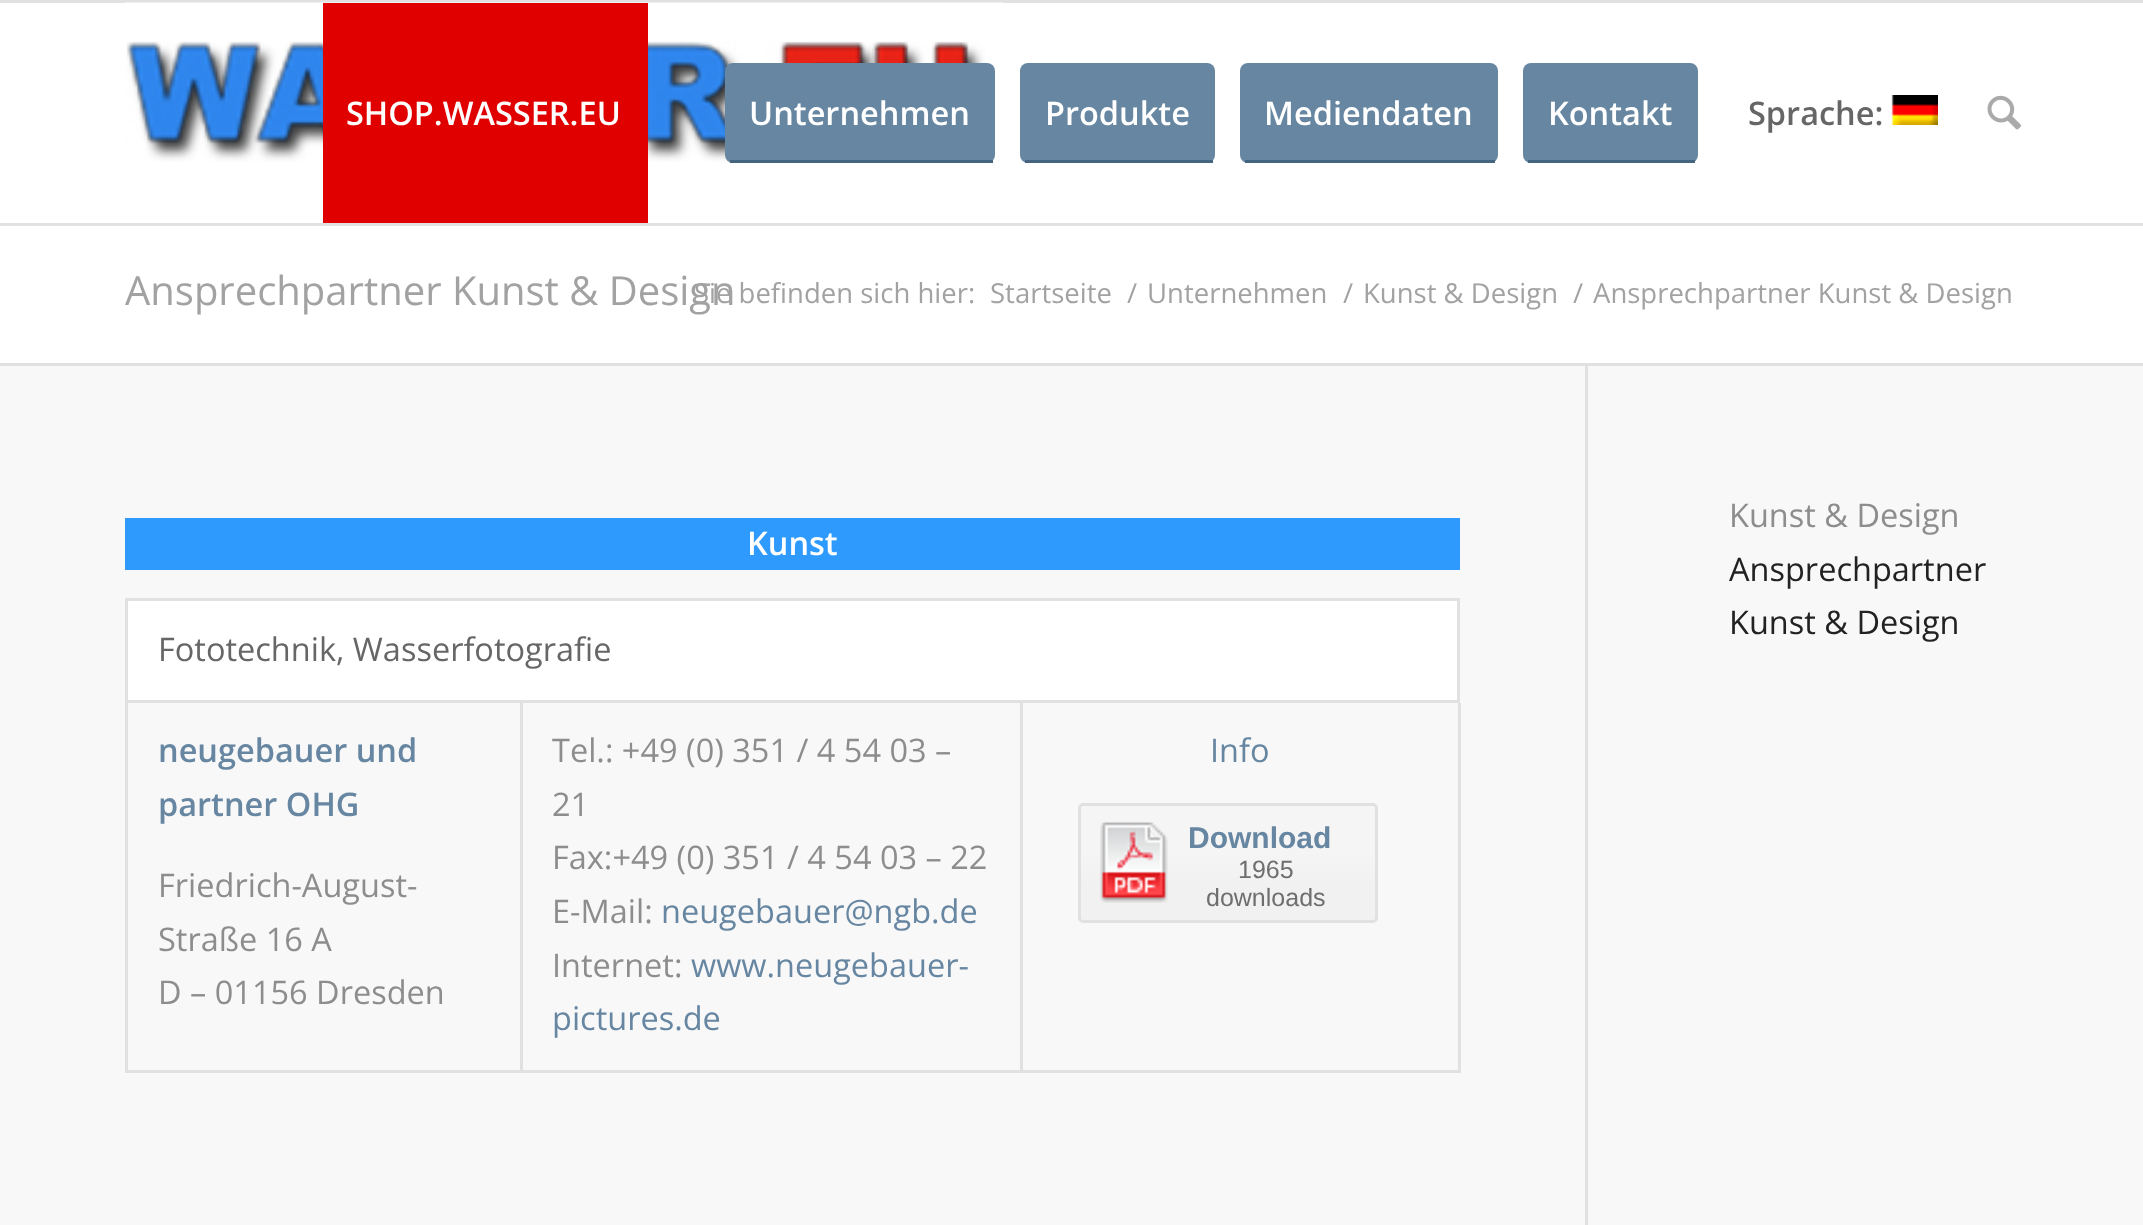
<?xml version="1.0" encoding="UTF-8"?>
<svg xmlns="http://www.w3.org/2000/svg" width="2143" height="1225">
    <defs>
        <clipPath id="clip1"><rect x="1078" y="803" width="300" height="120" rx="5"/></clipPath>
        <linearGradient id="g1" gradientUnits="userSpaceOnUse" x1="1080" y1="851" x2="1080" y2="886"><stop offset="0" stop-color="#F5F5F5"/><stop offset="1" stop-color="#F1F1F1"/></linearGradient>
    </defs>
    <rect width="100%" height="100%" fill="#FFFFFF"/>
    <rect x="0" y="0" width="2143" height="3" fill="#E1E1E1"/>
    <rect x="0" y="223" width="2143" height="3" fill="#E1E1E1"/>
    <image x="125" y="2" width="878" height="160" href="img_01.png"/>
    <rect x="323" y="3" width="325" height="220" fill="#E10000"/>
    <text x="346" y="125" font-family="Open Sans" font-size="32.5" font-weight="600" fill="#FFFFFF">SHOP.WASSER.EU</text>
    <rect x="725" y="63" width="270" height="100" rx="8" fill="#6786A1"/>
    <text x="749" y="125" font-family="Open Sans" font-size="32.5" font-weight="600" fill="#FFFFFF">Unternehmen</text>
    <rect x="730" y="160" width="263" height="3" fill="#456480"/>
    <rect x="1020" y="63" width="195" height="100" rx="8" fill="#6786A1"/>
    <text x="1045" y="125" font-family="Open Sans" font-size="32.5" font-weight="600" fill="#FFFFFF">Produkte</text>
    <rect x="1025" y="160" width="188" height="3" fill="#456480"/>
    <rect x="1240" y="63" width="258" height="100" rx="8" fill="#6786A1"/>
    <text x="1264" y="125" font-family="Open Sans" font-size="32.5" font-weight="600" fill="#FFFFFF">Mediendaten</text>
    <rect x="1245" y="160" width="250" height="3" fill="#456480"/>
    <rect x="1523" y="63" width="175" height="100" rx="8" fill="#6786A1"/>
    <text x="1548" y="125" font-family="Open Sans" font-size="32.5" font-weight="600" fill="#FFFFFF">Kontakt</text>
    <rect x="1528" y="160" width="167" height="3" fill="#456480"/>
    <text x="1748" y="125" font-family="Open Sans" font-size="32.5" font-weight="600" fill="#666666">Sprache:</text>
    <image x="1891" y="95" width="47" height="30" href="img_02.png"/>
    <image x="1987" y="95" width="34" height="35" href="img_03.png"/>
    <text x="125" y="305" font-family="Open Sans" font-size="40" fill="#A2A2A2">Ansprechpartner Kunst &amp; Design</text>
    <text x="694" y="303" font-family="Open Sans" font-size="27.5" fill="#A2A2A2">Sie befinden sich hier:</text>
    <text x="990" y="303" font-family="Open Sans" font-size="27.5" fill="#A2A2A2">Startseite</text>
    <text x="1127" y="303" font-family="Open Sans" font-size="27.5" fill="#A2A2A2">/</text>
    <text x="1147" y="303" font-family="Open Sans" font-size="27.5" fill="#A2A2A2">Unternehmen</text>
    <text x="1343" y="303" font-family="Open Sans" font-size="27.5" fill="#A2A2A2">/</text>
    <text x="1363" y="303" font-family="Open Sans" font-size="27.5" fill="#A2A2A2">Kunst &amp; Design</text>
    <text x="1573" y="303" font-family="Open Sans" font-size="27.5" fill="#A2A2A2">/</text>
    <text x="1593" y="303" font-family="Open Sans" font-size="27.5" fill="#A2A2A2">Ansprechpartner Kunst &amp; Design</text>
    <rect x="0" y="366" width="2143" height="859" fill="#F8F8F8"/>
    <rect x="0" y="363" width="2143" height="3" fill="#E1E1E1"/>
    <rect x="1585" y="365" width="3" height="860" fill="#E1E1E1"/>
    <rect x="125" y="518" width="1335" height="52" fill="#2E9AFE"/>
    <text x="747" y="555" font-family="Open Sans" font-size="32.5" font-weight="600" fill="#FFFFFF">Kunst</text>
    <rect x="126.5" y="599.5" width="1332" height="102" fill="#FFFFFF" stroke="#E1E1E1" stroke-width="3"/>
    <text x="158" y="661" font-family="Open Sans" font-size="32.5" fill="#666666">Fototechnik, Wasserfotografie</text>
    <rect x="520" y="703" width="3" height="370" fill="#E1E1E1"/>
    <rect x="125" y="1070" width="398" height="3" fill="#E1E1E1"/>
    <rect x="125" y="703" width="3" height="370" fill="#E1E1E1"/>
    <text font-family="Open Sans" font-size="32.5" font-weight="600" fill="#6786A1">
        <tspan x="158" y="762">neugebauer und</tspan>
        <tspan x="158" y="816">partner OHG</tspan>
    </text>
    <text font-family="Open Sans" font-size="32.5" fill="#8D8D8D">
        <tspan x="158" y="897">Friedrich-August-</tspan>
        <tspan x="158" y="951">Straße 16 A</tspan>
        <tspan x="158" y="1004">D – 01156 Dresden</tspan>
    </text>
    <rect x="1020" y="703" width="3" height="370" fill="#E1E1E1"/>
    <rect x="523" y="1070" width="500" height="3" fill="#E1E1E1"/>
    <text font-family="Open Sans" font-size="32.5" fill="#8D8D8D">
        <tspan x="552" y="762">Tel.: +49 (0) 351 / 4 54 03 –</tspan>
        <tspan x="552" y="816">21</tspan>
        <tspan x="552" y="869">Fax:+49 (0) 351 / 4 54 03 – 22</tspan>
        <tspan x="552" y="923">E-Mail:</tspan>
    </text>
    <text x="661" y="923" font-family="Open Sans" font-size="32.5" fill="#6786A1">neugebauer@ngb.de</text>
    <text x="552" y="977" font-family="Open Sans" font-size="32.5" fill="#8D8D8D">Internet:</text>
    <text x="691" y="977" font-family="Open Sans" font-size="32.5" fill="#6786A1">www.neugebauer-</text>
    <text x="552" y="1030" font-family="Open Sans" font-size="32.5" fill="#6786A1">pictures.de</text>
    <rect x="1458" y="703" width="3" height="370" fill="#E1E1E1"/>
    <rect x="1023" y="1070" width="437" height="3" fill="#E1E1E1"/>
    <text x="1210" y="762" font-family="Open Sans" font-size="32.5" fill="#6786A1">Info</text>
    <g clip-path="url(#clip1)">
        <rect x="1078" y="805" width="300" height="115" fill="url(#g1)"/>
    </g>
    <rect x="1079.5" y="804.5" width="297" height="117" rx="3.5" fill="none" stroke="#E1E1E1" stroke-width="3"/>
    <image x="1100" y="822" width="68" height="81" href="img_04.png"/>
    <text x="1188" y="848" font-family="Liberation Sans" font-size="30" font-weight="700" fill="#6786A1">Download</text>
    <text x="1238" y="878" font-family="Liberation Sans" font-size="25" fill="#6E6E6E">1965</text>
    <text x="1206" y="906" font-family="Liberation Sans" font-size="25" fill="#6E6E6E">downloads</text>
    <text x="1729" y="527" font-family="Open Sans" font-size="32.5" fill="#8D8D8D">Kunst &amp; Design</text>
    <text font-family="Open Sans" font-size="32.5" fill="#222222">
        <tspan x="1729" y="581">Ansprechpartner</tspan>
        <tspan x="1729" y="634">Kunst &amp; Design</tspan>
    </text>
</svg>
